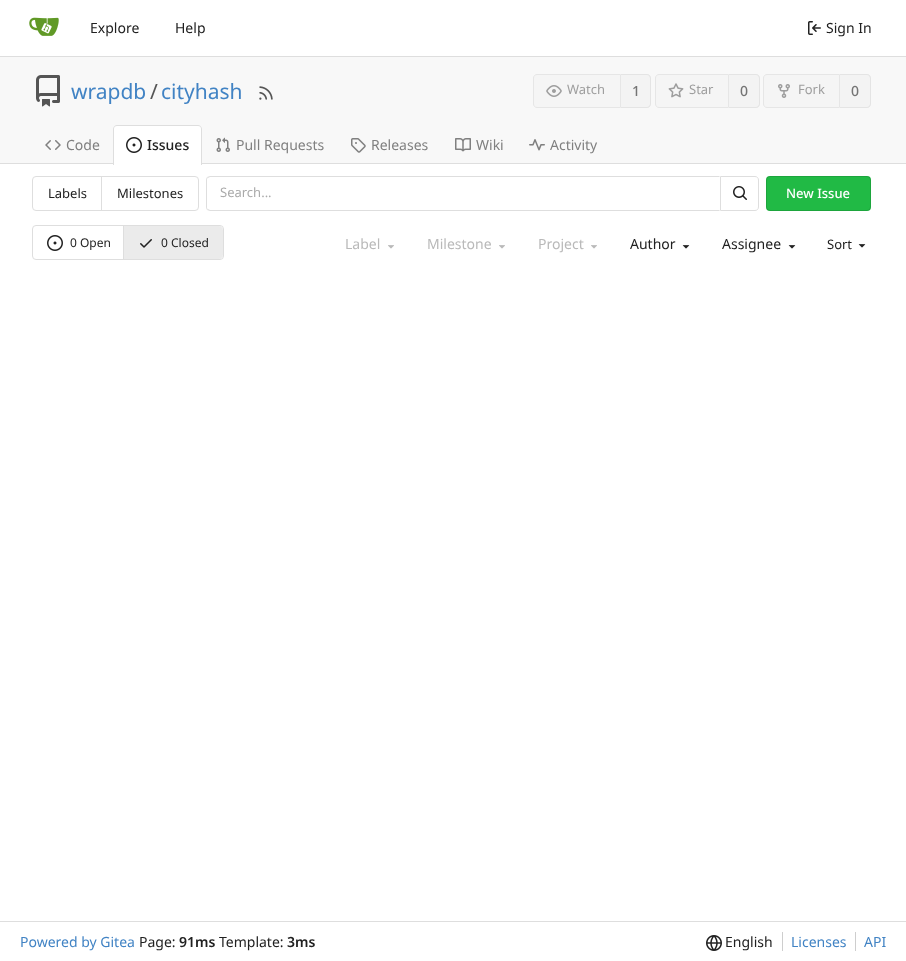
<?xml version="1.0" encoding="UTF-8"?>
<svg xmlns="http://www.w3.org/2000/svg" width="906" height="961">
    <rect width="100%" height="100%" fill="#FFFFFF"/>
    <rect x="0" y="56" width="906" height="1" fill="#DEDEDE"/>
    <image x="29" y="17" width="30" height="19" href="img_01.png"/>
    <text x="90" y="33" font-family="Noto Sans" font-size="14" fill="#212121">Explore</text>
    <text x="175" y="33" font-family="Noto Sans" font-size="14" fill="#212121">Help</text>
    <image x="808" y="21" width="13" height="14" href="img_02.png"/>
    <text x="826" y="33" font-family="Noto Sans" font-size="14" fill="#212121">Sign In</text>
    <rect x="0" y="57" width="906" height="106" fill="#F8F8F8"/>
    <image x="36" y="75" width="24" height="32" href="img_03.png"/>
    <text x="71" y="99" font-family="Noto Sans" font-size="21" fill="#4183C4">wrapdb</text>
    <text x="150" y="99" font-family="Noto Sans" font-size="21" fill="#555555">/</text>
    <text x="161" y="99" font-family="Noto Sans" font-size="21" fill="#4183C4">cityhash</text>
    <image x="259" y="86" width="14" height="14" href="img_04.png"/>
    <path d="M 537 74.5 H 620.5 V 107.5 H 537 C 535 107.5 533.5 106 533.5 104 V 78 C 533.5 76 535 74.5 537 74.5 Z" fill="#F5F5F5" stroke="#E6E6E6"/>
    <image x="546" y="85" width="16" height="12" href="img_05.png"/>
    <text x="567" y="94" font-family="Noto Sans" font-size="13" fill="#9E9E9E">Watch</text>
    <path d="M 621 74 H 647 C 649 74 651 76 651 78 V 104 C 651 106 649 108 647 108 H 621 Z" fill="#F3F3F3"/>
    <path d="M 621 74 H 647 C 649 74 651 76 651 78 V 104 C 651 106 649 108 647 108 H 621 Z M 621 75 H 647 C 648.5 75 650 76.5 650 78 V 104 C 650 105.5 648.5 107 647 107 H 621 Z" fill="#E4E4E4" fill-rule="evenodd"/>
    <text x="632" y="96" font-family="Noto Sans" font-size="14" font-weight="500" fill="#747474">1</text>
    <path d="M 659 74.5 H 728.5 V 107.5 H 659 C 657 107.5 655.5 106 655.5 104 V 78 C 655.5 76 657 74.5 659 74.5 Z" fill="#F5F5F5" stroke="#E6E6E6"/>
    <image x="668" y="83" width="16" height="15" href="img_06.png"/>
    <text x="689" y="94" font-family="Noto Sans" font-size="13" fill="#9E9E9E">Star</text>
    <path d="M 729 74 H 756 C 758 74 760 76 760 78 V 104 C 760 106 758 108 756 108 H 729 Z" fill="#F3F3F3"/>
    <path d="M 729 74 H 756 C 758 74 760 76 760 78 V 104 C 760 106 758 108 756 108 H 729 Z M 729 75 H 756 C 757.5 75 759 76.5 759 78 V 104 C 759 105.5 757.5 107 756 107 H 729 Z" fill="#E4E4E4" fill-rule="evenodd"/>
    <text x="740" y="96" font-family="Noto Sans" font-size="14" font-weight="500" fill="#747474">0</text>
    <path d="M 767 74.5 H 839.5 V 107.5 H 767 C 765 107.5 763.5 106 763.5 104 V 78 C 763.5 76 765 74.5 767 74.5 Z" fill="#F5F5F5" stroke="#E6E6E6"/>
    <image x="778" y="84" width="12" height="14" href="img_07.png"/>
    <text x="798" y="94" font-family="Noto Sans" font-size="13" fill="#9E9E9E">Fork</text>
    <path d="M 840 74 H 867 C 869 74 871 76 871 78 V 104 C 871 106 869 108 867 108 H 840 Z" fill="#F3F3F3"/>
    <path d="M 840 74 H 867 C 869 74 871 76 871 78 V 104 C 871 106 869 108 867 108 H 840 Z M 840 75 H 867 C 868.5 75 870 76.5 870 78 V 104 C 870 105.5 868.5 107 867 107 H 840 Z" fill="#E4E4E4" fill-rule="evenodd"/>
    <text x="851" y="96" font-family="Noto Sans" font-size="14" font-weight="500" fill="#747474">0</text>
    <image x="45" y="140" width="16" height="10" href="img_08.png"/>
    <text x="66" y="150" font-family="Noto Sans" font-size="14" fill="#808080">Code</text>
    <rect x="0" y="163" width="906" height="1" fill="#DEDEDE"/>
    <path d="M 117 125 H 198 C 200 125 202 127 202 129 V 164 H 113 V 129 C 113 127 115 125 117 125 Z" fill="#FFFFFF"/>
    <path d="M 117 125 H 198 C 200 125 202 127 202 129 V 165 H 113 V 129 C 113 127 115 125 117 125 Z M 117 126 H 198 C 200 126 201 127 201 129 V 165 H 114 V 129 C 114 127 115 126 117 126 Z" fill="#DEDEDE" fill-rule="evenodd"/>
    <image x="126" y="137" width="16" height="16" href="img_09.png"/>
    <text x="147" y="150" font-family="Noto Sans" font-size="14" font-weight="500" fill="#212121">Issues</text>
    <image x="216" y="137" width="14" height="15" href="img_10.png"/>
    <text x="236" y="150" font-family="Noto Sans" font-size="14" fill="#808080">Pull Requests</text>
    <image x="351" y="138" width="15" height="15" href="img_11.png"/>
    <text x="371" y="150" font-family="Noto Sans" font-size="14" fill="#808080">Releases</text>
    <image x="455" y="138" width="16" height="14" href="img_12.png"/>
    <text x="476" y="150" font-family="Noto Sans" font-size="14" fill="#808080">Wiki</text>
    <image x="529" y="139" width="16" height="12" href="img_13.png"/>
    <text x="550" y="150" font-family="Noto Sans" font-size="14" fill="#808080">Activity</text>
    <rect x="32.5" y="176.5" width="166" height="34" rx="3.5" fill="none" stroke="#DEDEDE"/>
    <text x="48" y="198" font-family="Noto Sans" font-size="13" fill="#212121">Labels</text>
    <rect x="101" y="177" width="1" height="33" fill="#DEDEDE"/>
    <text x="117" y="198" font-family="Noto Sans" font-size="13" fill="#212121">Milestones</text>
    <path d="M 210 176 L 207 177 L 208 178 L 210 177 H 719 L 720 176 Z" fill="#DEDEDE"/>
    <path d="M 720 211 L 719 210 H 210 L 208 209 L 207 210 L 210 211 Z" fill="#DEDEDE"/>
    <path d="M 206 180 V 207 C 206 208 206.5 209 207 210 L 208 209 C 207 209 207 208 207 207 V 180 C 207 179 207 178 208 178 L 207 177 C 206.5 178 206 179 206 180 Z" fill="#DEDEDE"/>
    <text x="220" y="197" font-family="Noto Sans" font-size="13" fill="#AAAAAA">Search...</text>
    <path d="M 720.5 176.5 H 755 C 757 176.5 758.5 178 758.5 180 V 207 C 758.5 209 757 210.5 755 210.5 H 720.5 Z" fill="none" stroke="#DEDEDE"/>
    <image x="733" y="186" width="14" height="14" href="img_14.png"/>
    <rect x="766" y="176" width="105" height="35" rx="4" fill="#21BA45"/>
    <rect x="766.5" y="176.5" width="104" height="34" rx="3.5" fill="none" stroke="#000000" stroke-opacity="0.11"/>
    <text x="786" y="198" font-family="Noto Sans" font-size="13" font-weight="500" fill="#FFFFFF">New Issue</text>
    <rect x="32.5" y="225.5" width="191" height="34" rx="3.5" fill="none" stroke="#DEDEDE"/>
    <image x="47" y="235" width="16" height="16" href="img_09.png"/>
    <text x="70" y="247" font-family="Noto Sans" font-size="12" fill="#212121">0 Open</text>
    <rect x="123" y="226" width="1" height="33" fill="#DEDEDE"/>
    <path d="M 124 226 H 219 C 221 226 223 228 223 230 V 255 C 223 257 221 259 219 259 H 124 Z" fill="#000000" fill-opacity="0.08"/>
    <image x="140" y="239" width="12" height="9" href="img_15.png"/>
    <text x="161" y="247" font-family="Noto Sans" font-size="12" fill="#212121">0 Closed</text>
    <text x="345" y="249" font-family="Noto Sans" font-size="14" fill="#B9B9B9">Label</text>
    <image x="388" y="245" width="6" height="4" href="img_16.png"/>
    <text x="427" y="249" font-family="Noto Sans" font-size="14" fill="#B9B9B9">Milestone</text>
    <image x="499" y="245" width="6" height="4" href="img_16.png"/>
    <text x="538" y="249" font-family="Noto Sans" font-size="14" fill="#B9B9B9">Project</text>
    <image x="591" y="245" width="6" height="4" href="img_16.png"/>
    <text x="630" y="249" font-family="Noto Sans" font-size="14" fill="#212121">Author</text>
    <image x="682" y="245" width="8" height="4" href="img_17.png"/>
    <text x="722" y="249" font-family="Noto Sans" font-size="14" fill="#212121">Assignee</text>
    <image x="788" y="245" width="8" height="4" href="img_17.png"/>
    <text x="827" y="249" font-family="Noto Sans" font-size="13" fill="#212121">Sort</text>
    <image x="858" y="244" width="8" height="4" href="img_17.png"/>
    <rect x="0" y="921" width="906" height="1" fill="#DEDEDE"/>
    <text x="20" y="947" font-family="Noto Sans" font-size="14" fill="#4183C4">Powered by Gitea</text>
    <text x="139" y="947" font-family="Noto Sans" font-size="14" fill="#212121">Page:</text>
    <text x="179" y="947" font-family="Noto Sans" font-size="14" font-weight="600" fill="#212121">91ms</text>
    <text x="219" y="947" font-family="Noto Sans" font-size="14" fill="#212121">Template:</text>
    <text x="287" y="947" font-family="Noto Sans" font-size="14" font-weight="600" fill="#212121">3ms</text>
    <image x="706" y="935" width="16" height="16" href="img_18.png"/>
    <text x="725" y="947" font-family="Noto Sans" font-size="14" fill="#212121">English</text>
    <text x="791" y="947" font-family="Noto Sans" font-size="14" fill="#4183C4">Licenses</text>
    <rect x="782" y="932" width="1" height="19" fill="#CECECE"/>
    <text x="864" y="947" font-family="Noto Sans" font-size="14" fill="#4183C4">API</text>
    <rect x="855" y="932" width="1" height="19" fill="#CECECE"/>
</svg>
